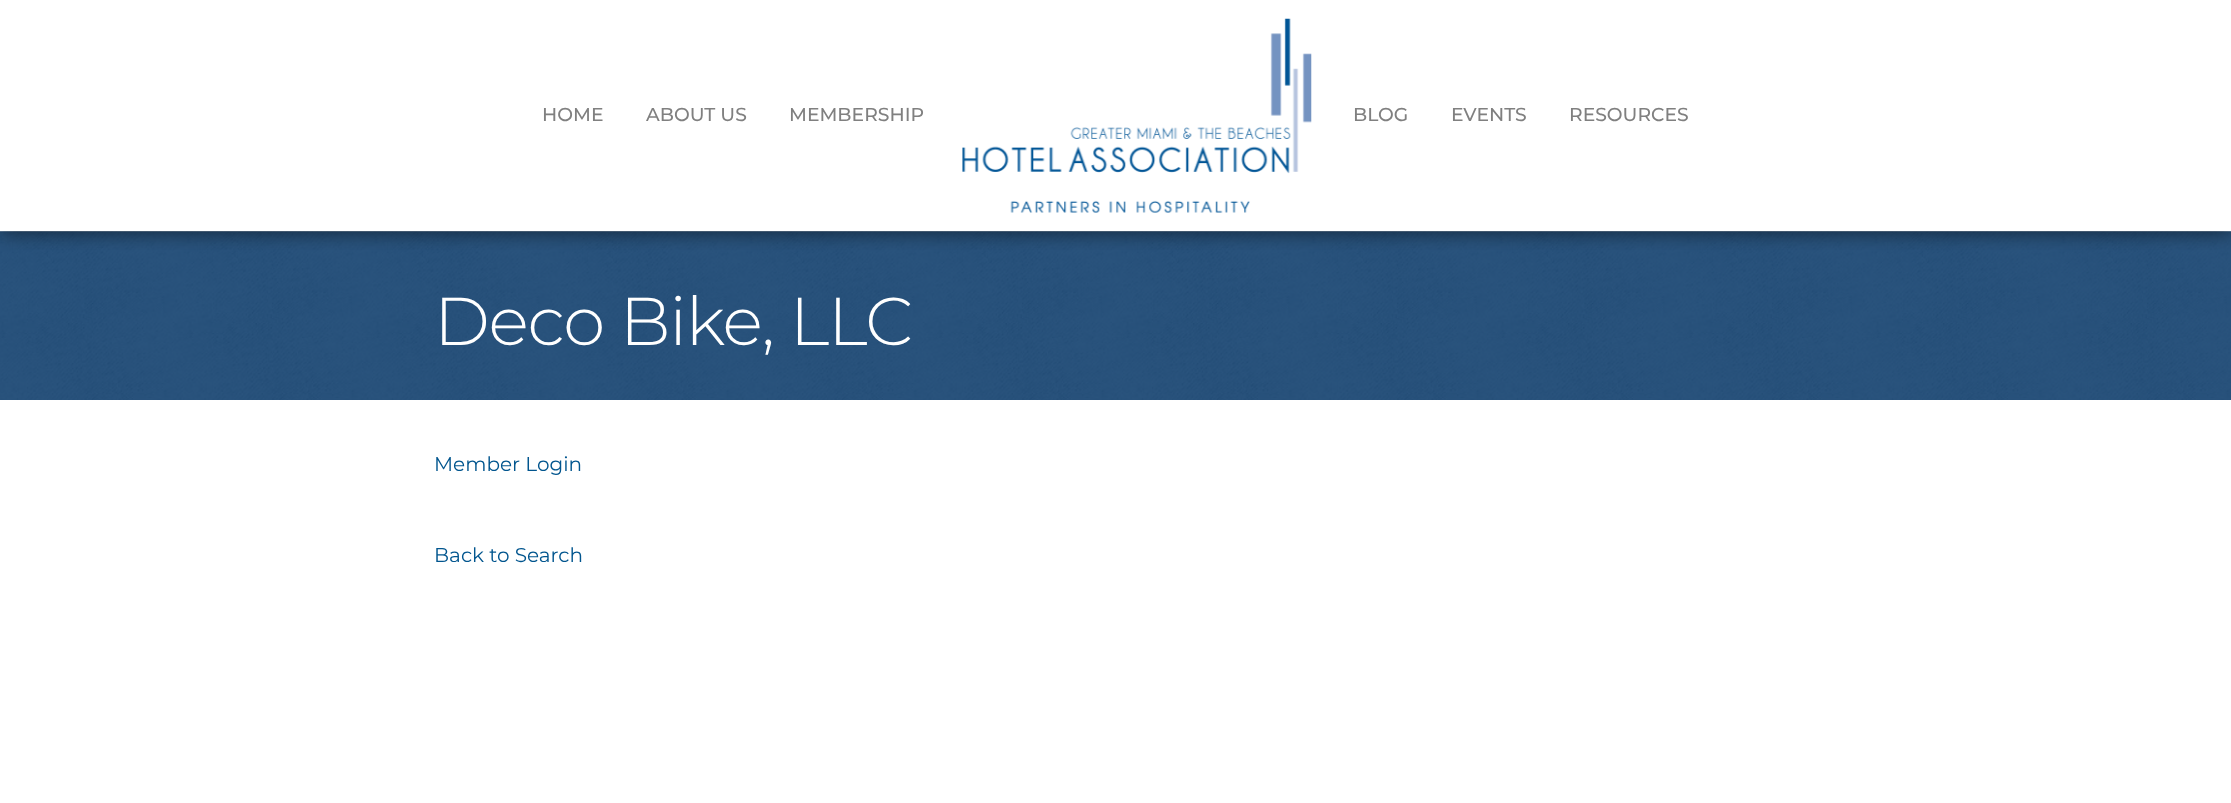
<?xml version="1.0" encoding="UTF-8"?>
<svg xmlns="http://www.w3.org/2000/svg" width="2231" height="803">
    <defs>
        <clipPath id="clip1"><rect x="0" y="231" width="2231" height="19"/></clipPath>
        <filter id="blur1" x="-50%" y="-200%" width="200%" height="500%"><feGaussianBlur stdDeviation="9.5"/></filter>
    </defs>
    <rect width="100%" height="100%" fill="#FFFFFF"/>
    <image x="0" y="231" width="2231" height="169" href="img_02.png"/>
    <g clip-path="url(#clip1)">
        <rect x="1" y="1" width="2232" height="232" fill="#000000" fill-opacity="0.5" filter="url(#blur1)"/>
    </g>
    <text x="542" y="121" font-family="Montserrat" font-size="18.75" font-weight="500" fill="#808080">HOME</text>
    <text x="646" y="121" font-family="Montserrat" font-size="18.75" font-weight="500" fill="#808080">ABOUT US</text>
    <text x="789" y="121" font-family="Montserrat" font-size="18.75" font-weight="500" fill="#808080">MEMBERSHIP</text>
    <image x="962" y="18" width="350" height="195" href="img_01.png"/>
    <text x="1353" y="121" font-family="Montserrat" font-size="18.75" font-weight="500" fill="#808080">BLOG</text>
    <text x="1451" y="121" font-family="Montserrat" font-size="18.75" font-weight="500" fill="#808080">EVENTS</text>
    <text x="1569" y="121" font-family="Montserrat" font-size="18.75" font-weight="500" fill="#808080">RESOURCES</text>
    <text x="434" y="345" font-family="Montserrat" font-size="67.5" font-weight="300" letter-spacing="-1.25" fill="#FFFFFF">Deco Bike, LLC</text>
    <text x="434" y="471" font-family="Montserrat" font-size="20" fill="#01558E">Member Login</text>
    <text x="434" y="562" font-family="Montserrat" font-size="20" fill="#01558E">Back to Search</text>
</svg>
